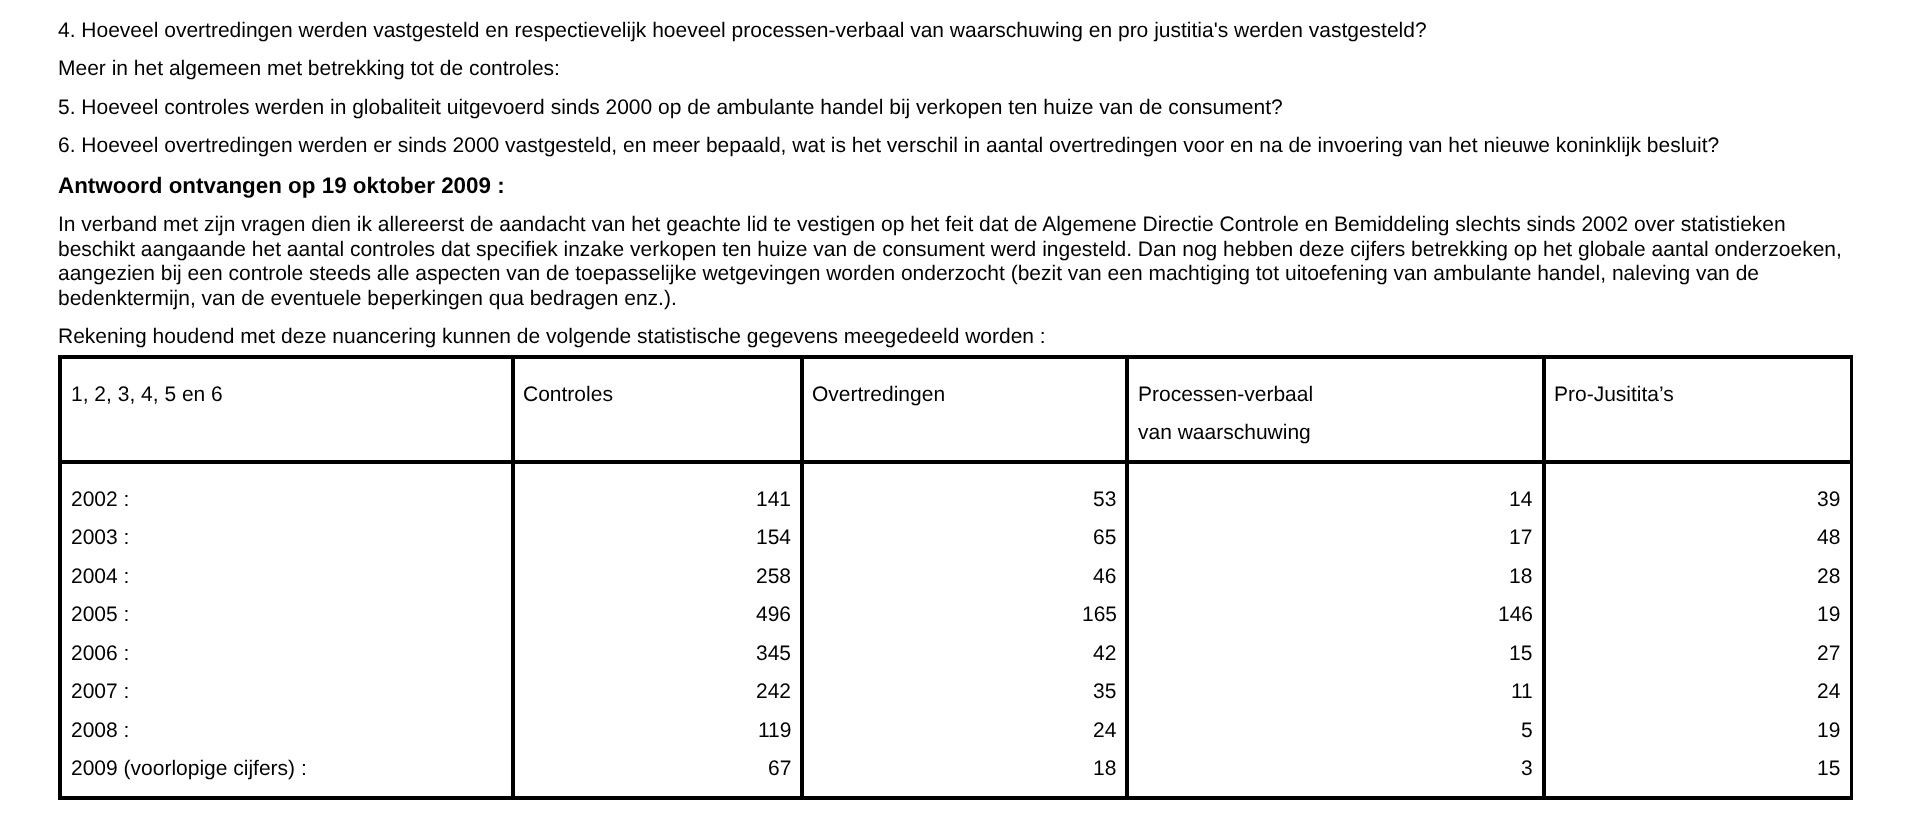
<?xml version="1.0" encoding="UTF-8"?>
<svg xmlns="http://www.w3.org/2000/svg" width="1911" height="840">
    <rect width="100%" height="100%" fill="#FFFFFF"/>
    <text font-family="Liberation Sans" font-size="21" fill="#000000">
        <tspan x="58" y="37">4. Hoeveel overtredingen werden vastgesteld en respectievelijk hoeveel processen-verbaal van waarschuwing en pro justitia's werden vastgesteld?</tspan>
        <tspan x="58" y="75">Meer in het algemeen met betrekking tot de controles:</tspan>
        <tspan x="58" y="114">5. Hoeveel controles werden in globaliteit uitgevoerd sinds 2000 op de ambulante handel bij verkopen ten huize van de consument?</tspan>
        <tspan x="58" y="152">6. Hoeveel overtredingen werden er sinds 2000 vastgesteld, en meer bepaald, wat is het verschil in aantal overtredingen voor en na de invoering van het nieuwe koninklijk besluit?</tspan>
    </text>
    <text x="58" y="193" font-family="Liberation Sans" font-size="22.4" font-weight="700" fill="#000000">Antwoord ontvangen op 19 oktober 2009 :</text>
    <text font-family="Liberation Sans" font-size="21" fill="#000000">
        <tspan x="58" y="231">In verband met zijn vragen dien ik allereerst de aandacht van het geachte lid te vestigen op het feit dat de Algemene Directie Controle en Bemiddeling slechts sinds 2002 over statistieken</tspan>
        <tspan x="58" y="256">beschikt aangaande het aantal controles dat specifiek inzake verkopen ten huize van de consument werd ingesteld. Dan nog hebben deze cijfers betrekking op het globale aantal onderzoeken,</tspan>
        <tspan x="58" y="280">aangezien bij een controle steeds alle aspecten van de toepasselijke wetgevingen worden onderzocht (bezit van een machtiging tot uitoefening van ambulante handel, naleving van de</tspan>
        <tspan x="58" y="305">bedenktermijn, van de eventuele beperkingen qua bedragen enz.).</tspan>
        <tspan x="58" y="343">Rekening houdend met deze nuancering kunnen de volgende statistische gegevens meegedeeld worden :</tspan>
    </text>
    <rect x="59" y="356" width="1793" height="443" fill="none" stroke="#000000" stroke-width="2"/>
    <rect x="61" y="358" width="451" height="103" fill="none" stroke="#000000" stroke-width="2"/>
    <text x="71" y="401" font-family="Liberation Sans" font-size="21" fill="#000000">1, 2, 3, 4, 5 en 6</text>
    <rect x="514" y="358" width="287" height="103" fill="none" stroke="#000000" stroke-width="2"/>
    <text x="523" y="401" font-family="Liberation Sans" font-size="21" fill="#000000">Controles</text>
    <rect x="803" y="358" width="323" height="103" fill="none" stroke="#000000" stroke-width="2"/>
    <text x="812" y="401" font-family="Liberation Sans" font-size="21" fill="#000000">Overtredingen</text>
    <rect x="1128" y="358" width="415" height="103" fill="none" stroke="#000000" stroke-width="2"/>
    <text font-family="Liberation Sans" font-size="21" fill="#000000">
        <tspan x="1138" y="401">Processen-verbaal</tspan>
        <tspan x="1138" y="439">van waarschuwing</tspan>
    </text>
    <rect x="1545" y="358" width="306" height="103" fill="none" stroke="#000000" stroke-width="2"/>
    <text x="1554" y="401" font-family="Liberation Sans" font-size="21" fill="#000000">Pro-Jusitita’s</text>
    <rect x="61" y="463" width="451" height="334" fill="none" stroke="#000000" stroke-width="2"/>
    <text font-family="Liberation Sans" font-size="21" fill="#000000">
        <tspan x="71" y="506">2002 :</tspan>
        <tspan x="71" y="544">2003 :</tspan>
        <tspan x="71" y="583">2004 :</tspan>
        <tspan x="71" y="621">2005 :</tspan>
        <tspan x="71" y="660">2006 :</tspan>
        <tspan x="71" y="698">2007 :</tspan>
        <tspan x="71" y="737">2008 :</tspan>
        <tspan x="71" y="775">2009 (voorlopige cijfers) :</tspan>
    </text>
    <rect x="514" y="463" width="287" height="334" fill="none" stroke="#000000" stroke-width="2"/>
    <text font-family="Liberation Sans" font-size="21" fill="#000000">
        <tspan x="756" y="506">141</tspan>
        <tspan x="756" y="544">154</tspan>
        <tspan x="756" y="583">258</tspan>
        <tspan x="756" y="621">496</tspan>
        <tspan x="756" y="660">345</tspan>
        <tspan x="756" y="698">242</tspan>
    </text>
    <text x="758" y="737" font-family="Liberation Sans" font-size="21" fill="#000000">119</text>
    <text x="768" y="775" font-family="Liberation Sans" font-size="21" fill="#000000">67</text>
    <rect x="803" y="463" width="323" height="334" fill="none" stroke="#000000" stroke-width="2"/>
    <text font-family="Liberation Sans" font-size="21" fill="#000000">
        <tspan x="1093" y="506">53</tspan>
        <tspan x="1093" y="544">65</tspan>
        <tspan x="1093" y="583">46</tspan>
    </text>
    <text x="1082" y="621" font-family="Liberation Sans" font-size="21" fill="#000000">165</text>
    <text font-family="Liberation Sans" font-size="21" fill="#000000">
        <tspan x="1093" y="660">42</tspan>
        <tspan x="1093" y="698">35</tspan>
        <tspan x="1093" y="737">24</tspan>
        <tspan x="1093" y="775">18</tspan>
    </text>
    <rect x="1128" y="463" width="415" height="334" fill="none" stroke="#000000" stroke-width="2"/>
    <text font-family="Liberation Sans" font-size="21" fill="#000000">
        <tspan x="1509" y="506">14</tspan>
        <tspan x="1509" y="544">17</tspan>
        <tspan x="1509" y="583">18</tspan>
    </text>
    <text x="1498" y="621" font-family="Liberation Sans" font-size="21" fill="#000000">146</text>
    <text x="1509" y="660" font-family="Liberation Sans" font-size="21" fill="#000000">15</text>
    <text x="1511" y="698" font-family="Liberation Sans" font-size="21" fill="#000000">11</text>
    <text font-family="Liberation Sans" font-size="21" fill="#000000">
        <tspan x="1521" y="737">5</tspan>
        <tspan x="1521" y="775">3</tspan>
    </text>
    <rect x="1545" y="463" width="306" height="334" fill="none" stroke="#000000" stroke-width="2"/>
    <text font-family="Liberation Sans" font-size="21" fill="#000000">
        <tspan x="1817" y="506">39</tspan>
        <tspan x="1817" y="544">48</tspan>
        <tspan x="1817" y="583">28</tspan>
        <tspan x="1817" y="621">19</tspan>
        <tspan x="1817" y="660">27</tspan>
        <tspan x="1817" y="698">24</tspan>
        <tspan x="1817" y="737">19</tspan>
        <tspan x="1817" y="775">15</tspan>
    </text>
</svg>
